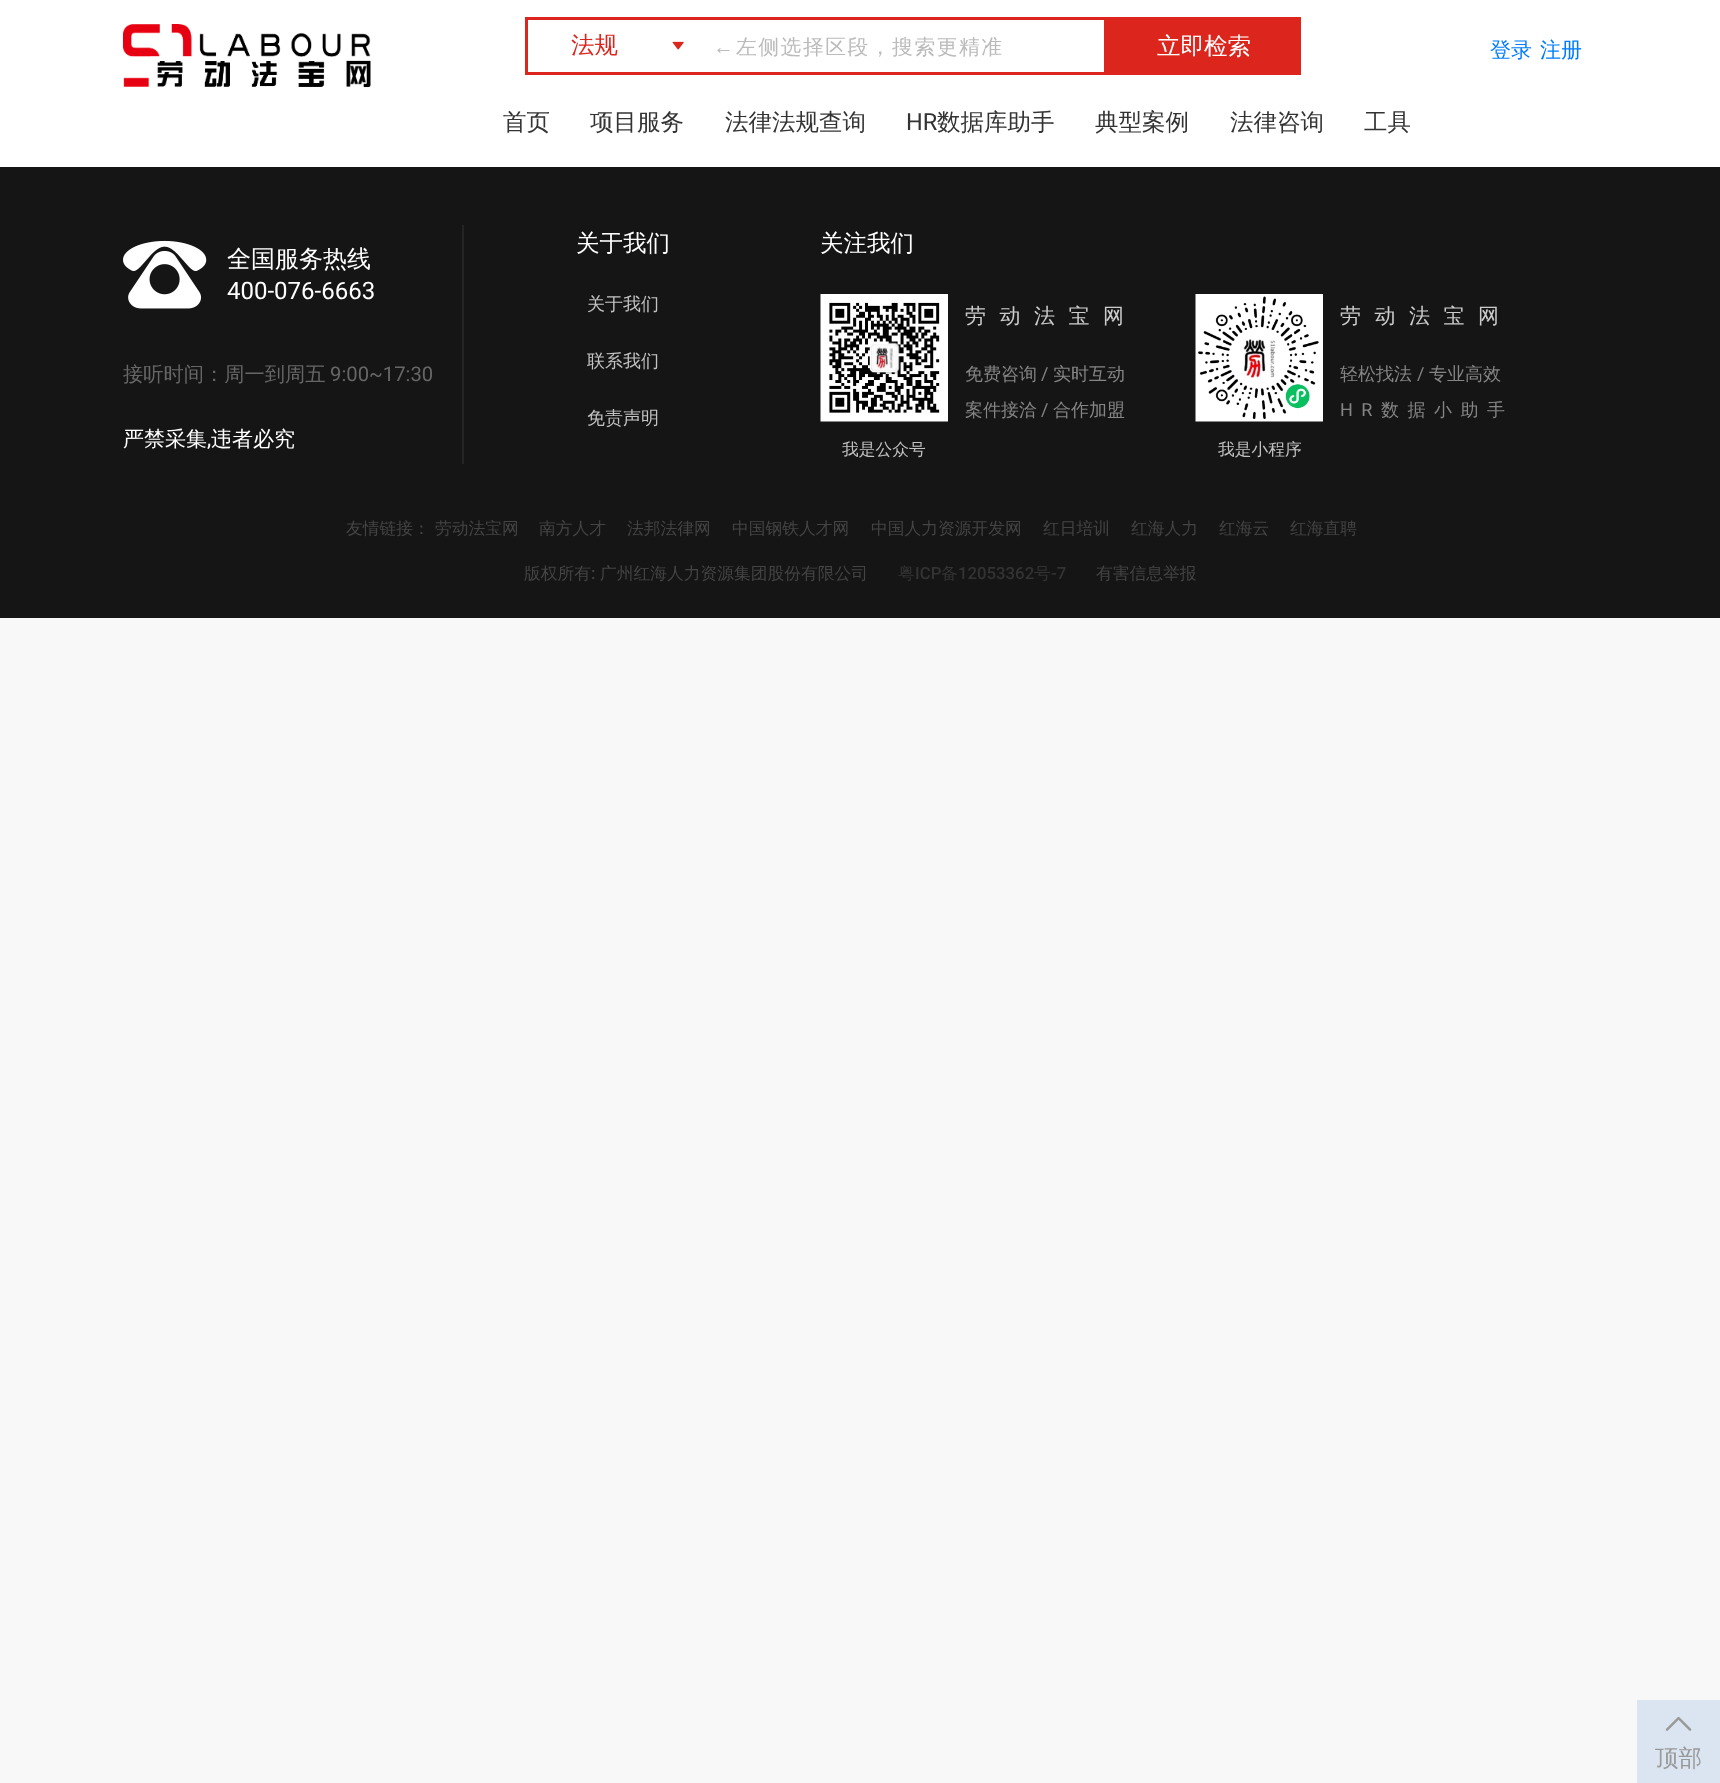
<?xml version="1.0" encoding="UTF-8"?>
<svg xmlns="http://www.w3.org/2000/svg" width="1720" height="1783">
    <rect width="100%" height="100%" fill="#F8F8F8"/>
    <rect x="0" y="0" width="1720" height="167" fill="#FFFFFF"/>
    <image x="123" y="24" width="248" height="64" href="img_01.png"/>
    <rect x="526.5" y="18.5" width="579" height="55" fill="none" stroke="#DC251D" stroke-width="3"/>
    <text x="571" y="53" font-family="WenQuanYi Zen Hei" font-size="23.5" font-weight="500" fill="#DC251D">法规</text>
    <image x="672" y="41" width="12" height="9" href="img_02.png"/>
    <text x="713" y="54" font-family="Liberation Sans" font-size="20.8" letter-spacing="1.5" fill="#BBBBBB">←</text>
    <text x="736" y="54" font-family="WenQuanYi Zen Hei" font-size="20.8" font-weight="500" letter-spacing="1.5" fill="#BBBBBB">左侧选择区段，搜索更精准</text>
    <rect x="1107" y="17" width="194" height="58" fill="#DC251D"/>
    <text x="1157" y="54" font-family="WenQuanYi Zen Hei" font-size="23.5" font-weight="500" fill="#FFFFFF">立即检索</text>
    <text x="1490" y="57" font-family="WenQuanYi Zen Hei" font-size="21" font-weight="500" fill="#007BFF">登录</text>
    <text x="1540" y="57" font-family="WenQuanYi Zen Hei" font-size="21" font-weight="500" fill="#007BFF">注册</text>
    <text x="503" y="130" font-family="WenQuanYi Zen Hei" font-size="23.5" font-weight="500" fill="#333333">首页</text>
    <text x="590" y="130" font-family="WenQuanYi Zen Hei" font-size="23.5" font-weight="500" fill="#333333">项目服务</text>
    <text x="725" y="130" font-family="WenQuanYi Zen Hei" font-size="23.5" font-weight="500" fill="#333333">法律法规查询</text>
    <text x="906" y="130" font-family="Roboto" font-size="23.5" fill="#333333">HR</text>
    <text x="937" y="130" font-family="WenQuanYi Zen Hei" font-size="23.5" font-weight="500" fill="#333333">数据库助手</text>
    <text x="1095" y="130" font-family="WenQuanYi Zen Hei" font-size="23.5" font-weight="500" fill="#333333">典型案例</text>
    <text x="1230" y="130" font-family="WenQuanYi Zen Hei" font-size="23.5" font-weight="500" fill="#333333">法律咨询</text>
    <text x="1364" y="130" font-family="WenQuanYi Zen Hei" font-size="23.5" font-weight="500" fill="#333333">工具</text>
    <rect x="0" y="167" width="1720" height="451" fill="#151515"/>
    <rect x="462" y="225" width="2" height="239" fill="#242424"/>
    <image x="123" y="240" width="84" height="69" href="img_03.png"/>
    <text x="227" y="267" font-family="WenQuanYi Zen Hei" font-size="24" font-weight="500" fill="#FFFFFF">全国服务热线</text>
    <text x="227" y="299" font-family="Roboto" font-size="24" fill="#FFFFFF">400-076-6663</text>
    <text x="123" y="381" font-family="WenQuanYi Zen Hei" font-size="20.25" font-weight="500" fill="#666666">接听时间：周一到周五</text>
    <text x="330" y="381" font-family="Roboto" font-size="20.25" fill="#666666">9:00~17:30</text>
    <text x="123" y="446" font-family="WenQuanYi Zen Hei" font-size="21" font-weight="500" fill="#FFFFFF">严禁采集</text>
    <text x="207" y="446" font-family="Roboto" font-size="21" fill="#FFFFFF">,</text>
    <text x="211" y="446" font-family="WenQuanYi Zen Hei" font-size="21" font-weight="500" fill="#FFFFFF">违者必究</text>
    <text x="576" y="251" font-family="WenQuanYi Zen Hei" font-size="23.5" font-weight="500" fill="#FFFFFF">关于我们</text>
    <text x="587" y="310" font-family="WenQuanYi Zen Hei" font-size="18" font-weight="500" fill="#C3C3C3">关于我们</text>
    <text x="587" y="367" font-family="WenQuanYi Zen Hei" font-size="18" font-weight="500" fill="#C3C3C3">联系我们</text>
    <text x="587" y="424" font-family="WenQuanYi Zen Hei" font-size="18" font-weight="500" fill="#C3C3C3">免责声明</text>
    <text x="820" y="251" font-family="WenQuanYi Zen Hei" font-size="23.5" font-weight="500" fill="#FFFFFF">关注我们</text>
    <text x="965" y="323" font-family="WenQuanYi Zen Hei" font-size="21" font-weight="500" letter-spacing="13.5" fill="#CCCCCC">劳动法宝网</text>
    <text x="965" y="380" font-family="WenQuanYi Zen Hei" font-size="18" font-weight="500" fill="#858585">免费咨询</text>
    <text x="1041" y="380" font-family="Roboto" font-size="18" fill="#858585">/</text>
    <text x="1053" y="380" font-family="WenQuanYi Zen Hei" font-size="18" font-weight="500" fill="#858585">实时互动</text>
    <text x="965" y="416" font-family="WenQuanYi Zen Hei" font-size="18" font-weight="500" fill="#858585">案件接洽</text>
    <text x="1041" y="416" font-family="Roboto" font-size="18" fill="#858585">/</text>
    <text x="1053" y="416" font-family="WenQuanYi Zen Hei" font-size="18" font-weight="500" fill="#858585">合作加盟</text>
    <image x="820" y="294" width="128" height="128" href="img_04.png"/>
    <text x="842" y="455" font-family="WenQuanYi Zen Hei" font-size="16.75" font-weight="500" fill="#C3C3C3">我是公众号</text>
    <text x="1340" y="323" font-family="WenQuanYi Zen Hei" font-size="21" font-weight="500" letter-spacing="13.5" fill="#CCCCCC">劳动法宝网</text>
    <text x="1340" y="380" font-family="WenQuanYi Zen Hei" font-size="18" font-weight="500" fill="#858585">轻松找法</text>
    <text x="1417" y="380" font-family="Roboto" font-size="18" fill="#858585">/</text>
    <text x="1429" y="380" font-family="WenQuanYi Zen Hei" font-size="18" font-weight="500" fill="#858585">专业高效</text>
    <text x="1340" y="416" font-family="Roboto" font-size="18" letter-spacing="8.5" fill="#858585">HR</text>
    <text x="1381" y="416" font-family="WenQuanYi Zen Hei" font-size="18" font-weight="500" letter-spacing="8.5" fill="#858585">数据小助手</text>
    <image x="1195" y="294" width="128" height="128" href="img_05.png"/>
    <text x="1218" y="455" font-family="WenQuanYi Zen Hei" font-size="16.75" font-weight="500" fill="#C3C3C3">我是小程序</text>
    <text x="346" y="534" font-family="WenQuanYi Zen Hei" font-size="16.75" font-weight="500" fill="#444444">友情链接：</text>
    <text x="435" y="534" font-family="WenQuanYi Zen Hei" font-size="16.75" font-weight="500" fill="#444444">劳动法宝网</text>
    <text x="539" y="534" font-family="WenQuanYi Zen Hei" font-size="16.75" font-weight="500" fill="#444444">南方人才</text>
    <text x="627" y="534" font-family="WenQuanYi Zen Hei" font-size="16.75" font-weight="500" fill="#444444">法邦法律网</text>
    <text x="732" y="534" font-family="WenQuanYi Zen Hei" font-size="16.75" font-weight="500" fill="#444444">中国钢铁人才网</text>
    <text x="871" y="534" font-family="WenQuanYi Zen Hei" font-size="16.75" font-weight="500" fill="#444444">中国人力资源开发网</text>
    <text x="1043" y="534" font-family="WenQuanYi Zen Hei" font-size="16.75" font-weight="500" fill="#444444">红日培训</text>
    <text x="1131" y="534" font-family="WenQuanYi Zen Hei" font-size="16.75" font-weight="500" fill="#444444">红海人力</text>
    <text x="1219" y="534" font-family="WenQuanYi Zen Hei" font-size="16.75" font-weight="500" fill="#444444">红海云</text>
    <text x="1290" y="534" font-family="WenQuanYi Zen Hei" font-size="16.75" font-weight="500" fill="#444444">红海直聘</text>
    <text x="524" y="579" font-family="WenQuanYi Zen Hei" font-size="16.75" font-weight="500" fill="#444444">版权所有</text>
    <text x="591" y="579" font-family="Roboto" font-size="16.75" font-weight="500" fill="#444444">:</text>
    <text x="600" y="579" font-family="WenQuanYi Zen Hei" font-size="16.75" font-weight="500" fill="#444444">广州红海人力资源集团股份有限公司</text>
    <text x="898" y="579" font-family="WenQuanYi Zen Hei" font-size="16.75" font-weight="500" fill="#333333">粤</text>
    <text x="915" y="579" font-family="Roboto" font-size="16.75" font-weight="500" fill="#333333">ICP</text>
    <text x="941" y="579" font-family="WenQuanYi Zen Hei" font-size="16.75" font-weight="500" fill="#333333">备</text>
    <text x="958" y="579" font-family="Roboto" font-size="16.75" font-weight="500" fill="#333333">12053362</text>
    <text x="1034" y="579" font-family="WenQuanYi Zen Hei" font-size="16.75" font-weight="500" fill="#333333">号</text>
    <text x="1051" y="579" font-family="Roboto" font-size="16.75" font-weight="500" fill="#333333">-7</text>
    <text x="1096" y="579" font-family="WenQuanYi Zen Hei" font-size="16.75" font-weight="500" fill="#444444">有害信息举报</text>
    <rect x="1637" y="1700" width="83" height="83" fill="#DBE5F1"/>
    <image x="1665" y="1716" width="27" height="15" href="img_06.png"/>
    <text x="1655" y="1766" font-family="WenQuanYi Zen Hei" font-size="23.5" font-weight="500" fill="#999999">顶部</text>
</svg>
